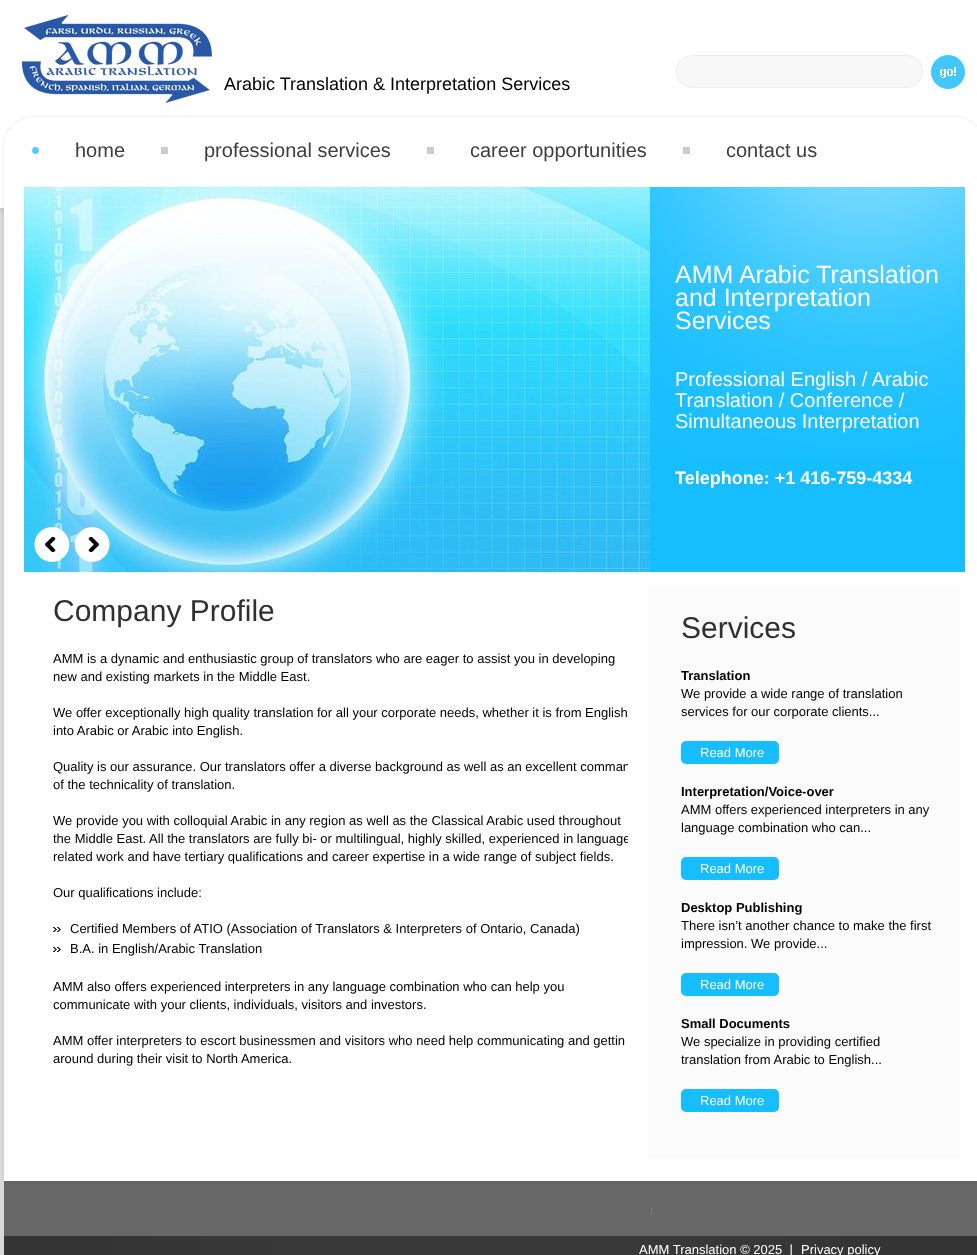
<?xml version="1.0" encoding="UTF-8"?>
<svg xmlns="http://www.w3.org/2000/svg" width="977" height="1255">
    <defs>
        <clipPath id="clip1"><rect x="28" y="596" width="600" height="472"/></clipPath>
    </defs>
    <rect width="100%" height="100%" fill="#D9D9D9"/>
    <image x="0" y="0" width="977" height="215" href="img_01.png"/>
    <image x="22" y="15" width="190" height="88" href="img_02.png"/>
    <text x="224" y="90" font-family="Liberation Sans" font-size="18" fill="#000000">Arabic Translation &amp; Interpretation Services</text>
    <image x="676" y="55" width="247" height="33" href="img_03.png"/>
    <image x="931" y="55" width="34" height="34" href="img_04.png"/>
    <image x="2" y="115" width="975" height="72" href="img_05.png"/>
    <image x="32" y="147" width="7" height="7" href="img_06.png"/>
    <text x="75" y="157" font-family="Liberation Sans" font-size="20" fill="#3D3D3D">home</text>
    <rect x="161" y="147" width="7" height="7" fill="#CCCCCC"/>
    <text x="204" y="157" font-family="Liberation Sans" font-size="20" fill="#3D3D3D">professional services</text>
    <rect x="427" y="147" width="7" height="7" fill="#CCCCCC"/>
    <text x="470" y="157" font-family="Liberation Sans" font-size="20" fill="#3D3D3D">career opportunities</text>
    <rect x="683" y="147" width="7" height="7" fill="#CCCCCC"/>
    <text x="726" y="157" font-family="Liberation Sans" font-size="20" fill="#3D3D3D">contact us</text>
    <image x="2" y="187" width="975" height="994" href="img_07.png"/>
    <image x="24" y="187" width="626" height="385" href="img_08.png"/>
    <image x="34" y="527" width="36" height="35" href="img_09.png"/>
    <image x="74" y="527" width="36" height="35" href="img_10.png"/>
    <rect x="650" y="459" width="315" height="113" fill="#16BEFF"/>
    <image x="650" y="187" width="315" height="272" href="img_11.png"/>
    <text font-family="Liberation Sans" font-size="25" fill="#FFFFFF">
        <tspan x="675" y="283">AMM Arabic Translation</tspan>
        <tspan x="675" y="306">and Interpretation</tspan>
        <tspan x="675" y="329">Services</tspan>
    </text>
    <text font-family="Liberation Sans" font-size="20" fill="#FFFFFF">
        <tspan x="675" y="386">Professional English / Arabic</tspan>
        <tspan x="675" y="407">Translation / Conference /</tspan>
        <tspan x="675" y="428">Simultaneous Interpretation</tspan>
    </text>
    <text x="675" y="484" font-family="Liberation Sans" font-size="18" font-weight="700" fill="#FFFFFF">Telephone: +1 416-759-4334</text>
    <text x="53" y="621" font-family="Liberation Sans" font-size="30" fill="#303030">Company Profile</text>
    <text font-family="Liberation Sans" font-size="13" fill="#000000">
        <tspan x="53" y="663">AMM is a dynamic and enthusiastic group of translators who are eager to assist you in developing</tspan>
        <tspan x="53" y="681">new and existing markets in the Middle East.</tspan>
    </text>
    <text font-family="Liberation Sans" font-size="13" fill="#000000">
        <tspan x="53" y="717">We offer exceptionally high quality translation for all your corporate needs, whether it is from English</tspan>
        <tspan x="53" y="735">into Arabic or Arabic into English.</tspan>
    </text>
    <g clip-path="url(#clip1)">
        <text x="53" y="771" font-family="Liberation Sans" font-size="13" fill="#000000">Quality is our assurance. Our translators offer a diverse background as well as an excellent comman</text>
    </g>
    <text x="53" y="789" font-family="Liberation Sans" font-size="13" fill="#000000">of the technicality of translation.</text>
    <text x="53" y="825" font-family="Liberation Sans" font-size="13" fill="#000000">We provide you with colloquial Arabic in any region as well as the Classical Arabic used throughout</text>
    <g clip-path="url(#clip1)">
        <text x="53" y="843" font-family="Liberation Sans" font-size="13" fill="#000000">the Middle East. All the translators are fully bi- or multilingual, highly skilled, experienced in language</text>
    </g>
    <text x="53" y="861" font-family="Liberation Sans" font-size="13" fill="#000000">related work and have tertiary qualifications and career expertise in a wide range of subject fields.</text>
    <text x="53" y="897" font-family="Liberation Sans" font-size="13" fill="#000000">Our qualifications include:</text>
    <image x="53" y="927" width="8" height="5" href="img_12.png"/>
    <text x="70" y="933" font-family="Liberation Sans" font-size="13" fill="#000000">Certified Members of ATIO (Association of Translators &amp; Interpreters of Ontario, Canada)</text>
    <image x="53" y="947" width="8" height="5" href="img_12.png"/>
    <text x="70" y="953" font-family="Liberation Sans" font-size="13" fill="#000000">B.A. in English/Arabic Translation</text>
    <text font-family="Liberation Sans" font-size="13" fill="#000000">
        <tspan x="53" y="991">AMM also offers experienced interpreters in any language combination who can help you</tspan>
        <tspan x="53" y="1009">communicate with your clients, individuals, visitors and investors.</tspan>
    </text>
    <text font-family="Liberation Sans" font-size="13" fill="#000000">
        <tspan x="53" y="1045">AMM offer interpreters to escort businessmen and visitors who need help communicating and gettin</tspan>
        <tspan x="53" y="1063">around during their visit to North America.</tspan>
    </text>
    <rect x="647" y="586" width="313" height="573" fill="#FBFBFB"/>
    <text x="681" y="638" font-family="Liberation Sans" font-size="30" fill="#303030">Services</text>
    <text x="681" y="680" font-family="Liberation Sans" font-size="13" font-weight="700" fill="#000000">Translation</text>
    <text font-family="Liberation Sans" font-size="13" fill="#000000">
        <tspan x="681" y="698">We provide a wide range of translation</tspan>
        <tspan x="681" y="716">services for our corporate clients...</tspan>
    </text>
    <rect x="681" y="741" width="98" height="23" rx="5" fill="#16BEFF"/>
    <text x="700" y="757" font-family="Liberation Sans" font-size="13" fill="#FFFFFF">Read More</text>
    <text x="681" y="796" font-family="Liberation Sans" font-size="13" font-weight="700" fill="#000000">Interpretation/Voice-over</text>
    <text font-family="Liberation Sans" font-size="13" fill="#000000">
        <tspan x="681" y="814">AMM offers experienced interpreters in any</tspan>
        <tspan x="681" y="832">language combination who can...</tspan>
    </text>
    <rect x="681" y="857" width="98" height="23" rx="5" fill="#16BEFF"/>
    <text x="700" y="873" font-family="Liberation Sans" font-size="13" fill="#FFFFFF">Read More</text>
    <text x="681" y="912" font-family="Liberation Sans" font-size="13" font-weight="700" fill="#000000">Desktop Publishing</text>
    <text font-family="Liberation Sans" font-size="13" fill="#000000">
        <tspan x="681" y="930">There isn’t another chance to make the first</tspan>
        <tspan x="681" y="948">impression. We provide...</tspan>
    </text>
    <rect x="681" y="973" width="98" height="23" rx="5" fill="#16BEFF"/>
    <text x="700" y="989" font-family="Liberation Sans" font-size="13" fill="#FFFFFF">Read More</text>
    <text x="681" y="1028" font-family="Liberation Sans" font-size="13" font-weight="700" fill="#000000">Small Documents</text>
    <text font-family="Liberation Sans" font-size="13" fill="#000000">
        <tspan x="681" y="1046">We specialize in providing certified</tspan>
        <tspan x="681" y="1064">translation from Arabic to English...</tspan>
    </text>
    <rect x="681" y="1089" width="98" height="23" rx="5" fill="#16BEFF"/>
    <text x="700" y="1105" font-family="Liberation Sans" font-size="13" fill="#FFFFFF">Read More</text>
    <rect x="4" y="1181" width="973" height="55" fill="#676767"/>
    <rect x="651" y="1208" width="1" height="6" fill="#7E7E7E"/>
    <image x="4" y="1236" width="973" height="19" href="img_13.png"/>
    <text x="639" y="1254" font-family="Liberation Sans" font-size="13" fill="#FFFFFF" xml:space="preserve">AMM Translation © 2025  |</text>
    <text x="801" y="1254" font-family="Liberation Sans" font-size="13" fill="#FFFFFF">Privacy policy</text>
</svg>
